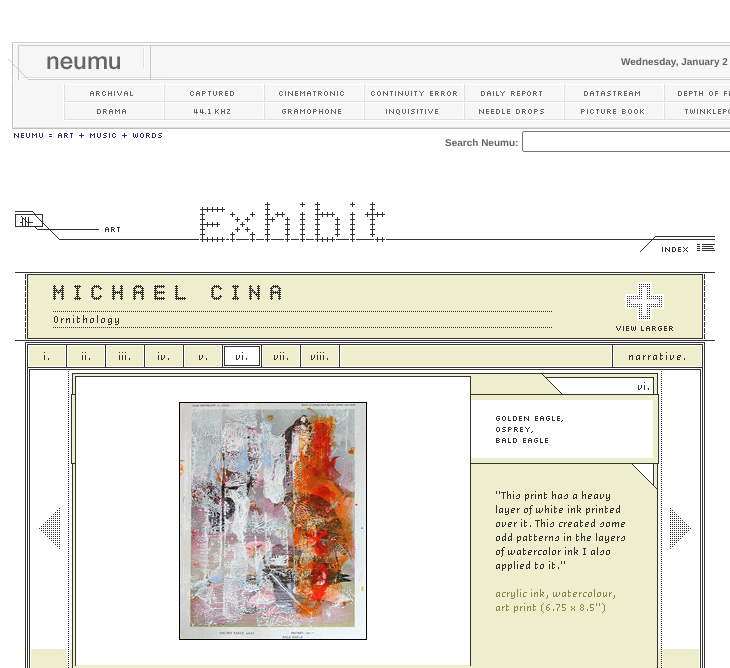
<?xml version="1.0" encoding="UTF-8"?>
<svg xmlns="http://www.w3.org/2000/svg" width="730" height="668">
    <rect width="100%" height="100%" fill="#FFFFFF"/>
    <image x="12" y="42" width="718" height="4" href="img_01.png"/>
    <image x="8" y="46" width="155" height="31" href="img_02.png"/>
    <rect x="163" y="46" width="567" height="31" fill="#F7F7F7"/>
    <text x="621" y="65" font-family="Liberation Sans" font-size="10" font-weight="700" fill="#666666">Wednesday, January 2</text>
    <image x="12" y="77" width="718" height="8" href="img_03.png"/>
    <image x="12" y="85" width="51" height="16" href="img_04.png"/>
    <rect x="64" y="85" width="1" height="16" fill="#E1E1E1"/>
    <image x="65" y="85" width="98" height="16" href="img_05.png"/>
    <rect x="164" y="85" width="1" height="16" fill="#E1E1E1"/>
    <image x="165" y="85" width="98" height="16" href="img_06.png"/>
    <rect x="264" y="85" width="1" height="16" fill="#E1E1E1"/>
    <image x="265" y="85" width="98" height="16" href="img_07.png"/>
    <rect x="364" y="85" width="1" height="16" fill="#E1E1E1"/>
    <image x="365" y="85" width="98" height="16" href="img_08.png"/>
    <rect x="464" y="85" width="1" height="16" fill="#E1E1E1"/>
    <image x="465" y="85" width="98" height="16" href="img_09.png"/>
    <rect x="564" y="85" width="1" height="16" fill="#E1E1E1"/>
    <image x="565" y="85" width="98" height="16" href="img_10.png"/>
    <rect x="664" y="85" width="1" height="16" fill="#E1E1E1"/>
    <image x="665" y="85" width="65" height="16" href="img_11.png"/>
    <image x="12" y="101" width="718" height="2" href="img_12.png"/>
    <image x="12" y="103" width="51" height="16" href="img_04.png"/>
    <rect x="64" y="103" width="1" height="16" fill="#E1E1E1"/>
    <image x="65" y="103" width="98" height="16" href="img_13.png"/>
    <rect x="164" y="103" width="1" height="16" fill="#E1E1E1"/>
    <image x="165" y="103" width="98" height="16" href="img_14.png"/>
    <rect x="264" y="103" width="1" height="16" fill="#E1E1E1"/>
    <image x="265" y="103" width="98" height="16" href="img_15.png"/>
    <rect x="364" y="103" width="1" height="16" fill="#E1E1E1"/>
    <image x="365" y="103" width="98" height="16" href="img_16.png"/>
    <rect x="464" y="103" width="1" height="16" fill="#E1E1E1"/>
    <image x="465" y="103" width="98" height="16" href="img_17.png"/>
    <rect x="564" y="103" width="1" height="16" fill="#E1E1E1"/>
    <image x="565" y="103" width="98" height="16" href="img_18.png"/>
    <rect x="664" y="103" width="1" height="16" fill="#E1E1E1"/>
    <image x="665" y="103" width="65" height="16" href="img_19.png"/>
    <image x="12" y="119" width="718" height="10" href="img_20.png"/>
    <image x="14" y="133" width="148" height="5" href="img_21.png"/>
    <text x="445" y="146" font-family="Liberation Sans" font-size="10" font-weight="700" fill="#666666">Search Neumu:</text>
    <rect x="522.5" y="131.5" width="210" height="20" rx="1.5" fill="none" stroke="#767676"/>
    <image x="15" y="202" width="700" height="50" href="img_22.png"/>
    <rect x="15" y="272" width="700" height="1" fill="#333333"/>
    <image x="25" y="274" width="1" height="65" href="img_23.png"/>
    <rect x="27" y="274" width="676" height="65" fill="#333333"/>
    <rect x="28" y="275" width="674" height="63" fill="#EEEECC"/>
    <image x="53" y="285" width="499" height="43" href="img_24.png"/>
    <image x="616" y="282" width="57" height="49" href="img_25.png"/>
    <image x="704" y="274" width="1" height="65" href="img_23.png"/>
    <rect x="15" y="340" width="700" height="1" fill="#333333"/>
    <rect x="25" y="342" width="680" height="326" fill="#333333"/>
    <rect x="26" y="343" width="678" height="325" fill="#FFFFFF"/>
    <rect x="27" y="344" width="676" height="324" fill="#333333"/>
    <rect x="28" y="345" width="38" height="22" fill="#FFFFFF"/>
    <image x="29" y="346" width="36" height="20" href="img_26.png"/>
    <rect x="67" y="345" width="38" height="22" fill="#FFFFFF"/>
    <image x="68" y="346" width="36" height="20" href="img_27.png"/>
    <rect x="106" y="345" width="38" height="22" fill="#FFFFFF"/>
    <image x="107" y="346" width="36" height="20" href="img_28.png"/>
    <rect x="145" y="345" width="38" height="22" fill="#FFFFFF"/>
    <image x="146" y="346" width="36" height="20" href="img_29.png"/>
    <rect x="184" y="345" width="38" height="22" fill="#FFFFFF"/>
    <image x="185" y="346" width="36" height="20" href="img_30.png"/>
    <rect x="223" y="345" width="38" height="22" fill="#FFFFFF"/>
    <image x="224" y="346" width="36" height="20" href="img_31.png"/>
    <rect x="262" y="345" width="38" height="22" fill="#FFFFFF"/>
    <image x="263" y="346" width="36" height="20" href="img_32.png"/>
    <rect x="301" y="345" width="38" height="22" fill="#FFFFFF"/>
    <image x="302" y="346" width="36" height="20" href="img_33.png"/>
    <rect x="340" y="345" width="272" height="22" fill="#FFFFFF"/>
    <rect x="341" y="346" width="270" height="20" fill="#EEEECC"/>
    <rect x="613" y="345" width="89" height="22" fill="#FFFFFF"/>
    <image x="614" y="346" width="87" height="20" href="img_34.png"/>
    <rect x="28" y="368" width="674" height="300" fill="#FFFFFF"/>
    <image x="29" y="369" width="40" height="299" href="img_35.png"/>
    <image x="69" y="369" width="7" height="299" href="img_36.png"/>
    <image x="76" y="369" width="394" height="8" href="img_37.png"/>
    <image x="470" y="369" width="191" height="299" href="img_38.png"/>
    <image x="661" y="369" width="40" height="299" href="img_39.png"/>
    <image x="179" y="402" width="188" height="238" href="img_40.png"/>
    <rect x="76" y="665" width="394" height="3" fill="#EEEECC"/>
</svg>
